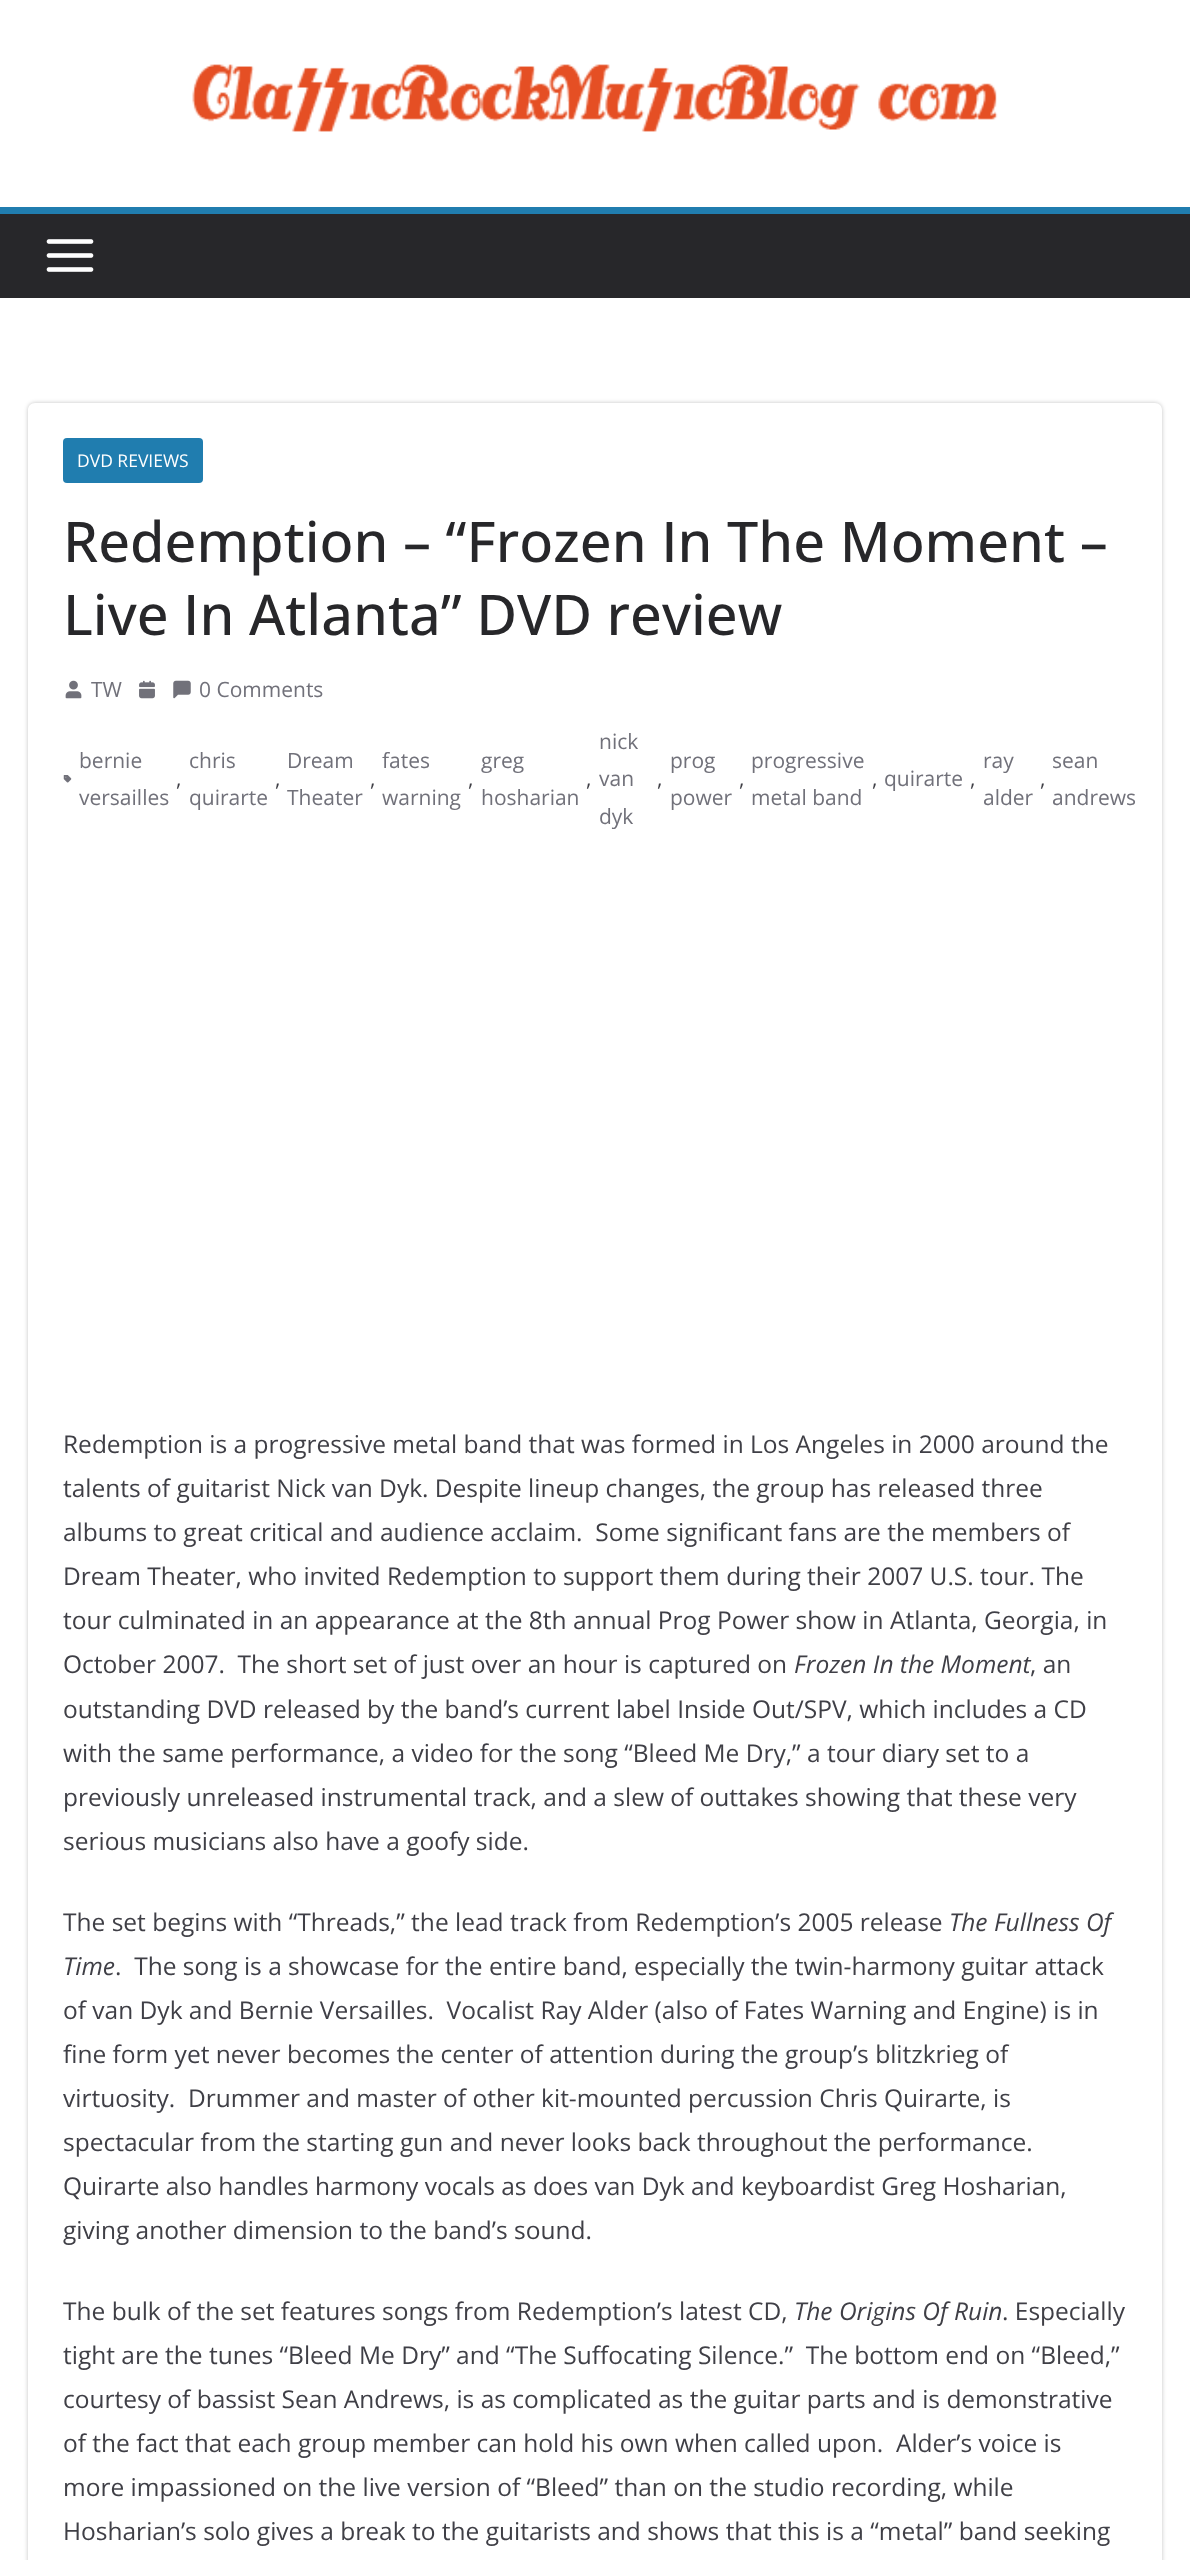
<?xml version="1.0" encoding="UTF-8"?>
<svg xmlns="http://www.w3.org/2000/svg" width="1190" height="2560">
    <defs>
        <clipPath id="clip1"><path d="M 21 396 H 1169 V 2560 H 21 Z M 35 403 H 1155 C 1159 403 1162 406 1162 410 V 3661 C 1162 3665 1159 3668 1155 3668 H 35 C 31 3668 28 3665 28 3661 V 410 C 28 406 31 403 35 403 Z" clip-rule="evenodd"/></clipPath>
        <filter id="blur1" x="-50%" y="-200%" width="200%" height="500%"><feGaussianBlur stdDeviation="2"/></filter>
    </defs>
    <rect width="100%" height="100%" fill="#FFFFFF"/>
    <image x="192" y="64" width="806" height="68" href="img_01.png"/>
    <rect x="0" y="214" width="1190" height="84" fill="#27272A"/>
    <rect x="0" y="207" width="1190" height="7" fill="#207DAF"/>
    <image x="46" y="239" width="48" height="33" href="img_02.png"/>
    <g clip-path="url(#clip1)">
        <rect x="28" y="403" width="1134" height="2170" rx="7" fill="#000000" fill-opacity="0.24" filter="url(#blur1)"/>
    </g>
    <rect x="63" y="438" width="140" height="45" rx="4" fill="#207DAF"/>
    <text x="77" y="467" font-family="Open Sans" font-size="17.5" fill="#FFFFFF">DVD REVIEWS</text>
    <text font-family="Open Sans" font-size="56" font-weight="500" fill="#27272A">
        <tspan x="63" y="562">Redemption – “Frozen In The Moment –</tspan>
        <tspan x="63" y="635">Live In Atlanta” DVD review</tspan>
    </text>
    <image x="65" y="680" width="17" height="19" href="img_03.png"/>
    <text x="91" y="697" font-family="Open Sans" font-size="21" fill="#71717A">TW</text>
    <image x="139" y="680" width="16" height="19" href="img_04.png"/>
    <image x="173" y="680" width="18" height="19" href="img_05.png"/>
    <text x="199" y="697" font-family="Open Sans" font-size="21" fill="#71717A">0 Comments</text>
    <image x="63" y="775" width="9" height="8" href="img_06.png"/>
    <text font-family="Open Sans" font-size="21" fill="#71717A">
        <tspan x="79" y="768">bernie</tspan>
        <tspan x="79" y="805">versailles</tspan>
    </text>
    <text font-family="Open Sans" font-size="21" fill="#71717A">
        <tspan x="189" y="768">chris</tspan>
        <tspan x="189" y="805">quirarte</tspan>
    </text>
    <text font-family="Open Sans" font-size="21" fill="#71717A">
        <tspan x="287" y="768">Dream</tspan>
        <tspan x="287" y="805">Theater</tspan>
    </text>
    <text font-family="Open Sans" font-size="21" fill="#71717A">
        <tspan x="382" y="768">fates</tspan>
        <tspan x="382" y="805">warning</tspan>
    </text>
    <text font-family="Open Sans" font-size="21" fill="#71717A">
        <tspan x="481" y="768">greg</tspan>
        <tspan x="481" y="805">hosharian</tspan>
    </text>
    <text font-family="Open Sans" font-size="21" fill="#71717A">
        <tspan x="599" y="749">nick</tspan>
        <tspan x="599" y="786">van</tspan>
        <tspan x="599" y="824">dyk</tspan>
    </text>
    <text font-family="Open Sans" font-size="21" fill="#71717A">
        <tspan x="670" y="768">prog</tspan>
        <tspan x="670" y="805">power</tspan>
    </text>
    <text font-family="Open Sans" font-size="21" fill="#71717A">
        <tspan x="751" y="768">progressive</tspan>
        <tspan x="751" y="805">metal band</tspan>
    </text>
    <text x="884" y="786" font-family="Open Sans" font-size="21" fill="#71717A">quirarte</text>
    <text font-family="Open Sans" font-size="21" fill="#71717A">
        <tspan x="983" y="768">ray</tspan>
        <tspan x="983" y="805">alder</tspan>
    </text>
    <text font-family="Open Sans" font-size="21" fill="#71717A">
        <tspan x="1052" y="768">sean</tspan>
        <tspan x="1052" y="805">andrews</tspan>
    </text>
    <text x="176" y="786" font-family="Open Sans" font-size="21" fill="#3F3F46">,</text>
    <text x="275" y="786" font-family="Open Sans" font-size="21" fill="#3F3F46">,</text>
    <text x="370" y="786" font-family="Open Sans" font-size="21" fill="#3F3F46">,</text>
    <text x="468" y="786" font-family="Open Sans" font-size="21" fill="#3F3F46">,</text>
    <text x="586" y="786" font-family="Open Sans" font-size="21" fill="#3F3F46">,</text>
    <text x="657" y="786" font-family="Open Sans" font-size="21" fill="#3F3F46">,</text>
    <text x="739" y="786" font-family="Open Sans" font-size="21" fill="#3F3F46">,</text>
    <text x="872" y="786" font-family="Open Sans" font-size="21" fill="#3F3F46">,</text>
    <text x="970" y="786" font-family="Open Sans" font-size="21" fill="#3F3F46">,</text>
    <text x="1040" y="786" font-family="Open Sans" font-size="21" fill="#3F3F46">,</text>
    <text font-family="Open Sans" font-size="24.5" fill="#3F3F46" xml:space="preserve"><tspan x="63" y="1453">Redemption is a progressive metal band that was formed in Los Angeles in 2000 around the</tspan><tspan x="63" y="1497">talents of guitarist Nick van Dyk. Despite lineup changes, the group has released three</tspan><tspan x="63" y="1541">albums to great critical and audience acclaim.  Some significant fans are the members of</tspan><tspan x="63" y="1585">Dream Theater, who invited Redemption to support them during their 2007 U.S. tour. The</tspan><tspan x="63" y="1629">tour culminated in an appearance at the 8th annual Prog Power show in Atlanta, Georgia, in</tspan><tspan x="63" y="1673">October 2007.  The short set of just over an hour is captured on</tspan></text>
    <text x="794" y="1673" font-family="Open Sans" font-size="24.5" font-style="italic" fill="#3F3F46">Frozen In the Moment</text>
    <text x="1030" y="1673" font-family="Open Sans" font-size="24.5" fill="#3F3F46">, an</text>
    <text font-family="Open Sans" font-size="24.5" fill="#3F3F46">
        <tspan x="63" y="1718">outstanding DVD released by the band’s current label Inside Out/SPV, which includes a CD</tspan>
        <tspan x="63" y="1762">with the same performance, a video for the song “Bleed Me Dry,” a tour diary set to a</tspan>
        <tspan x="63" y="1806">previously unreleased instrumental track, and a slew of outtakes showing that these very</tspan>
        <tspan x="63" y="1850">serious musicians also have a goofy side.</tspan>
    </text>
    <text x="63" y="1931" font-family="Open Sans" font-size="24.5" fill="#3F3F46">The set begins with “Threads,” the lead track from Redemption’s 2005 release</text>
    <text x="949" y="1931" font-family="Open Sans" font-size="24.5" font-style="italic" fill="#3F3F46">The Fullness Of</text>
    <text x="63" y="1975" font-family="Open Sans" font-size="24.5" font-style="italic" fill="#3F3F46">Time</text>
    <text x="115" y="1975" font-family="Open Sans" font-size="24.5" fill="#3F3F46" xml:space="preserve">.  The song is a showcase for the entire band, especially the twin-harmony guitar attack</text>
    <text font-family="Open Sans" font-size="24.5" fill="#3F3F46" xml:space="preserve"><tspan x="63" y="2019">of van Dyk and Bernie Versailles.  Vocalist Ray Alder (also of Fates Warning and Engine) is in</tspan><tspan x="63" y="2063">fine form yet never becomes the center of attention during the group’s blitzkrieg of</tspan><tspan x="63" y="2107">virtuosity.  Drummer and master of other kit-mounted percussion Chris Quirarte, is</tspan><tspan x="63" y="2151">spectacular from the starting gun and never looks back throughout the performance.</tspan><tspan x="63" y="2195">Quirarte also handles harmony vocals as does van Dyk and keyboardist Greg Hosharian,</tspan><tspan x="63" y="2239">giving another dimension to the band’s sound.</tspan></text>
    <text x="63" y="2320" font-family="Open Sans" font-size="24.5" fill="#3F3F46">The bulk of the set features songs from Redemption’s latest CD,</text>
    <text x="794" y="2320" font-family="Open Sans" font-size="24.5" font-style="italic" fill="#3F3F46">The Origins Of Ruin</text>
    <text x="1002" y="2320" font-family="Open Sans" font-size="24.5" fill="#3F3F46">. Especially</text>
    <text font-family="Open Sans" font-size="24.5" fill="#3F3F46" xml:space="preserve"><tspan x="63" y="2364">tight are the tunes “Bleed Me Dry” and “The Suffocating Silence.”  The bottom end on “Bleed,”</tspan><tspan x="63" y="2408">courtesy of bassist Sean Andrews, is as complicated as the guitar parts and is demonstrative</tspan><tspan x="63" y="2452">of the fact that each group member can hold his own when called upon.  Alder’s voice is</tspan><tspan x="63" y="2496">more impassioned on the live version of “Bleed” than on the studio recording, while</tspan><tspan x="63" y="2540">Hosharian’s solo gives a break to the guitarists and shows that this is a “metal” band seeking</tspan></text>
</svg>
